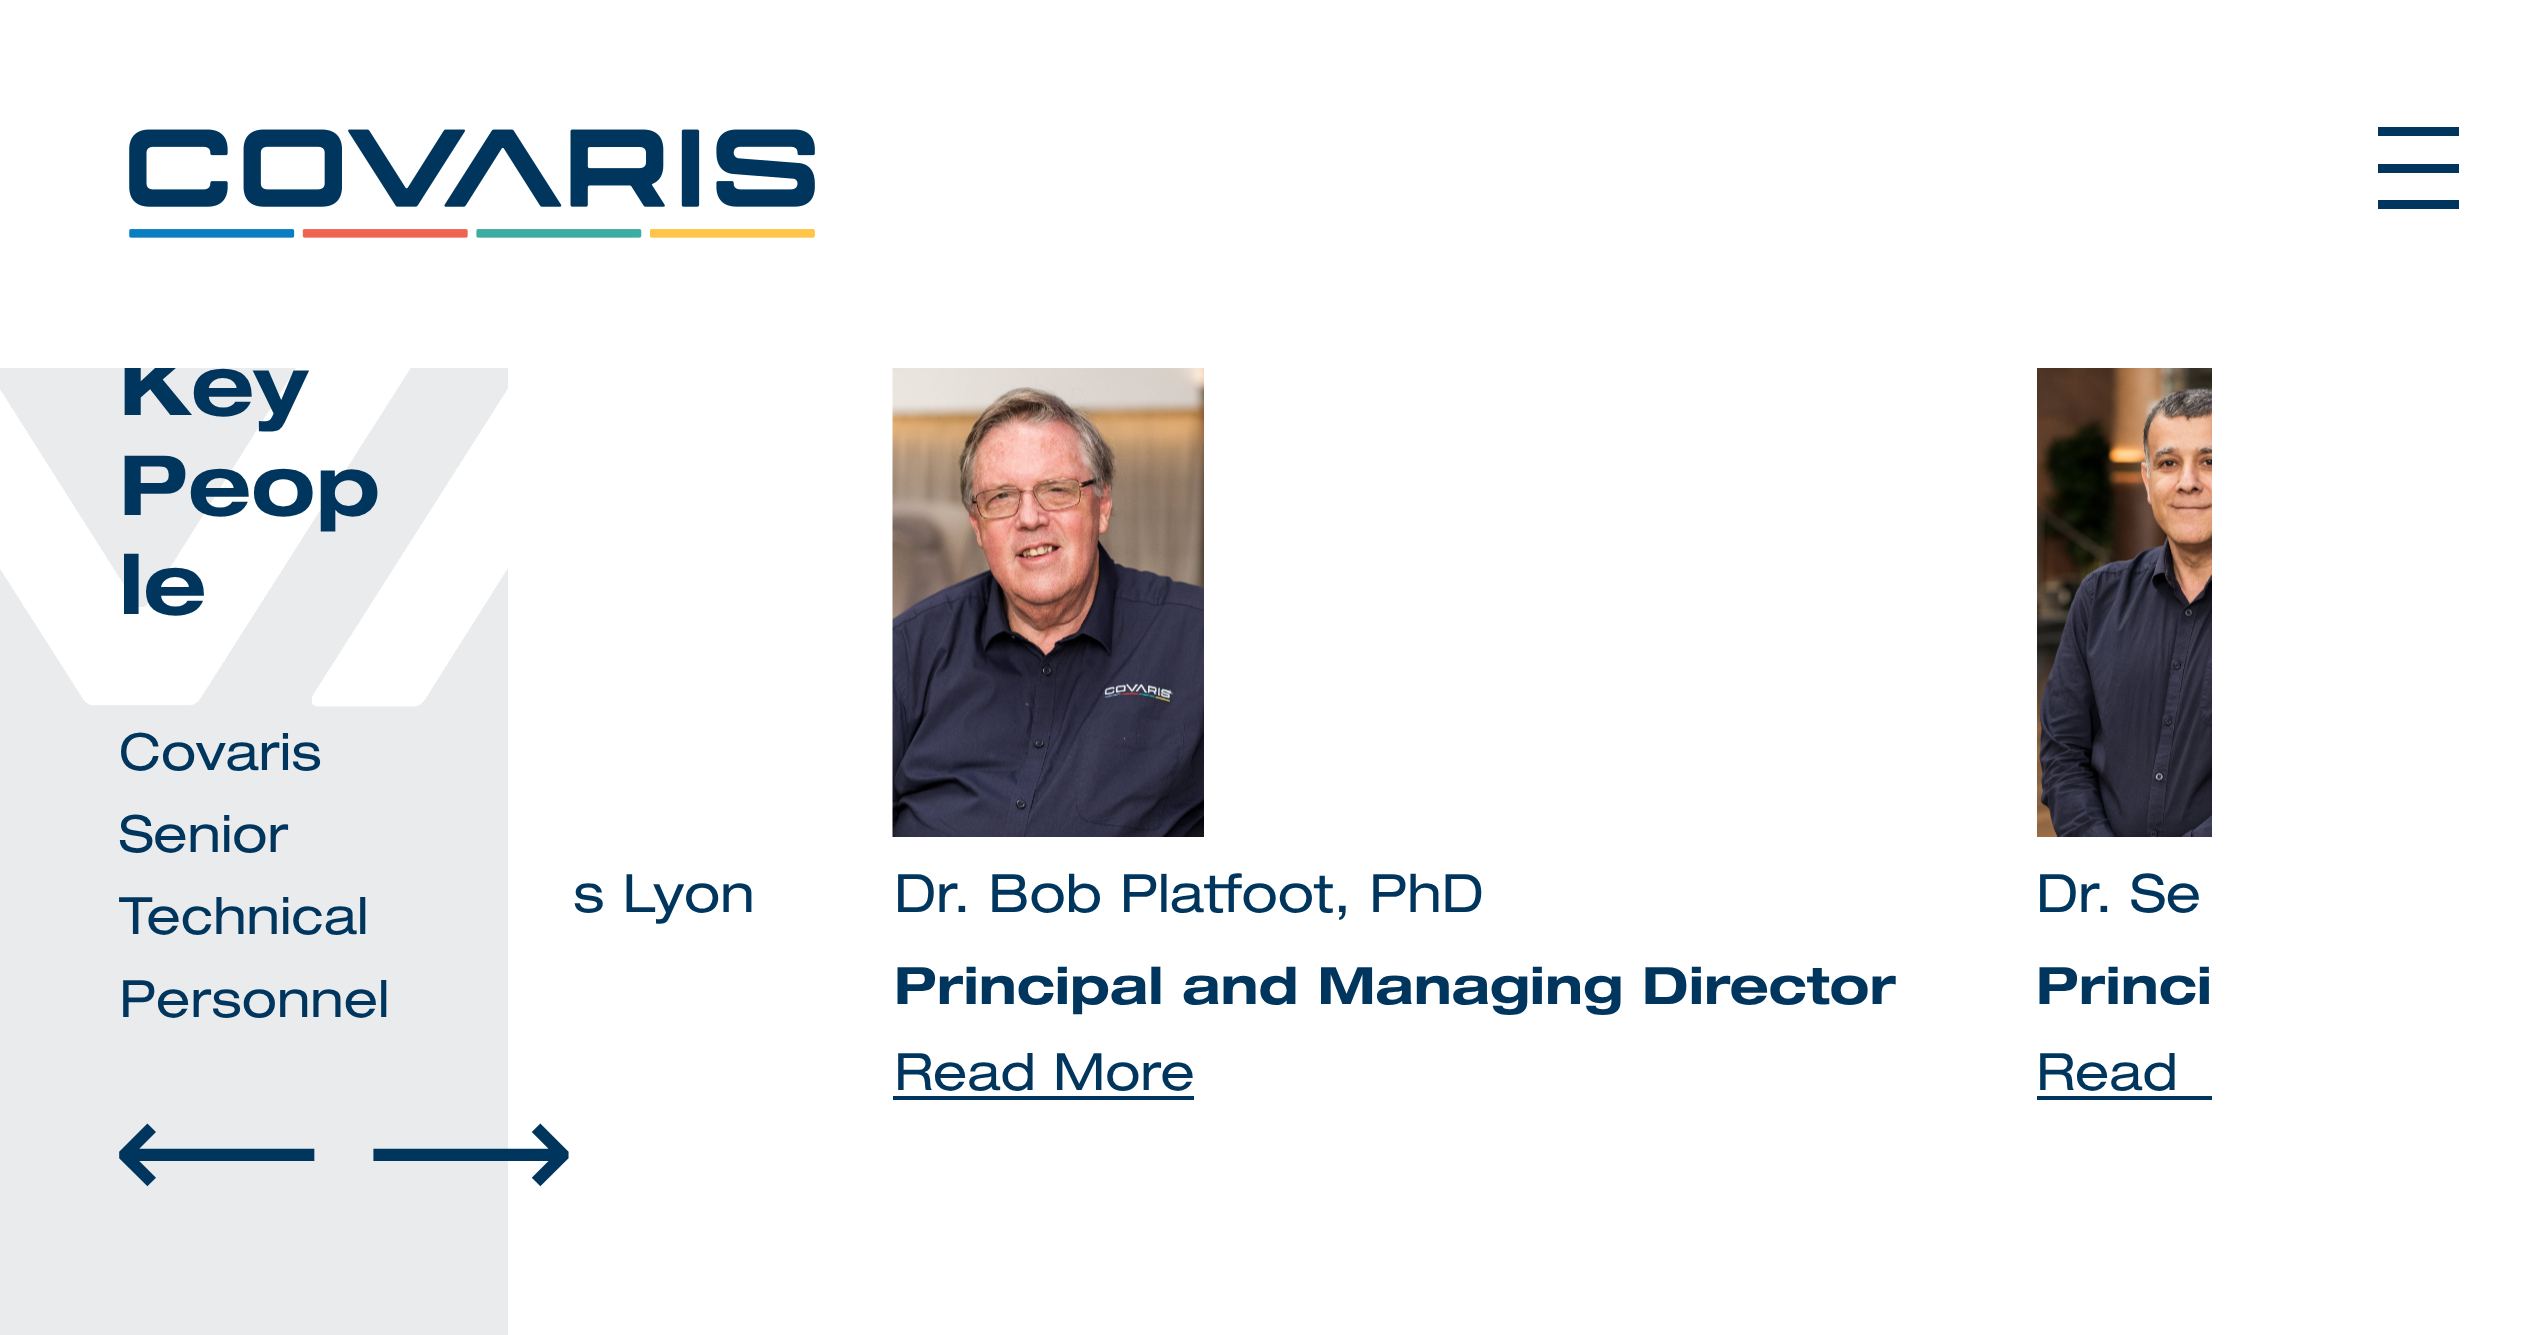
<?xml version="1.0" encoding="UTF-8"?>
<svg xmlns="http://www.w3.org/2000/svg" width="2539" height="1335">
    <defs>
        <clipPath id="clip1"><rect x="0" y="368" width="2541" height="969"/></clipPath>
    </defs>
    <rect width="100%" height="100%" fill="#FFFFFF"/>
    <image x="129" y="129" width="686" height="109" href="img_01.png"/>
    <path d="M 2378 127 V 136 H 2459 V 127 Z M 2378 173 H 2459 V 164 H 2378 Z M 2378 209 H 2459 V 200 H 2378 Z" fill="#00365E"/>
    <rect x="0" y="368" width="508" height="967" fill="#EAEBEC"/>
    <image x="0" y="368" width="508" height="339" href="img_02.png"/>
    <rect x="574" y="886" width="4" height="25" fill="#FFFFFF"/>
    <g clip-path="url(#clip1)">
        <text x="119" y="415" font-family="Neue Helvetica" font-size="83" font-weight="700" fill="#00365E">Key</text>
    </g>
    <text font-family="Neue Helvetica" font-size="83" font-weight="700" fill="#00365E">
        <tspan x="119" y="515">Peop</tspan>
        <tspan x="119" y="614">le</tspan>
    </text>
    <text font-family="Neue Helvetica" font-size="51.4" fill="#00365E">
        <tspan x="119" y="770">Covaris</tspan>
        <tspan x="119" y="852">Senior</tspan>
        <tspan x="119" y="934">Technical</tspan>
        <tspan x="119" y="1017">Personnel</tspan>
    </text>
    <text x="112" y="1201" font-family="DejaVu Sans" font-size="147" fill="#00365E">⟵</text>
    <text x="365" y="1201" font-family="DejaVu Sans" font-size="147" fill="#00365E">⟶</text>
    <text x="573" y="912" font-family="Neue Helvetica" font-size="53" fill="#00365E">s Lyon</text>
    <image x="892" y="368" width="312" height="469" href="img_03.png"/>
    <text x="894" y="912" font-family="Neue Helvetica" font-size="53" fill="#00365E">Dr. Bob Platfoot, PhD</text>
    <text x="894" y="1004" font-family="Neue Helvetica" font-size="51.4" font-weight="700" fill="#00365E">Principal and Managing Director</text>
    <text x="894" y="1090" font-family="Neue Helvetica" font-size="51.4" fill="#00365E">Read More</text>
    <rect x="893" y="1096" width="301" height="4" fill="#00365E"/>
    <image x="2037" y="368" width="175" height="469" href="img_04.png"/>
    <text x="2036" y="912" font-family="Neue Helvetica" font-size="53" fill="#00365E">Dr. Se</text>
    <text x="2036" y="1004" font-family="Neue Helvetica" font-size="51.4" font-weight="700" fill="#00365E">Princi</text>
    <text x="2036" y="1090" font-family="Neue Helvetica" font-size="51.4" fill="#00365E">Read</text>
    <rect x="2037" y="1096" width="175" height="4" fill="#00365E"/>
</svg>
